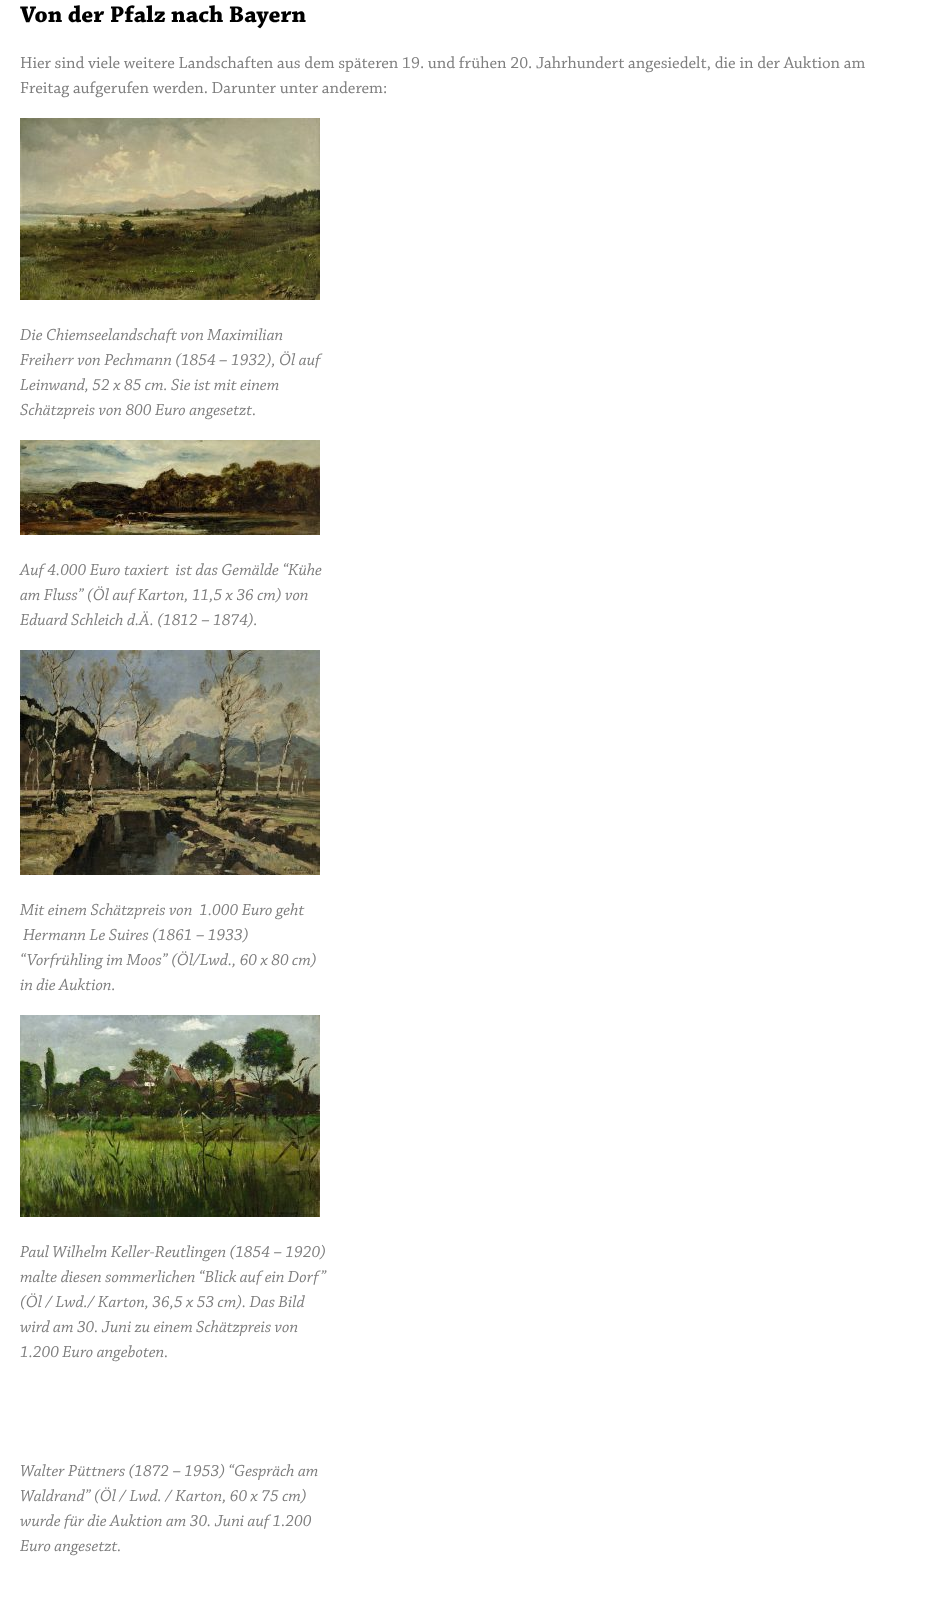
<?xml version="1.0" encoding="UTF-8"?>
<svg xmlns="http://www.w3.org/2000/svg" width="937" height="1597">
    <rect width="100%" height="100%" fill="#FFFFFF"/>
    <text x="20" y="22" font-family="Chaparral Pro" font-size="24" font-weight="700" fill="#000000">Von der Pfalz nach Bayern</text>
    <text font-family="Chaparral Pro" font-size="17" fill="#7D7D7D">
        <tspan x="20" y="68">Hier sind viele weitere Landschaften aus dem späteren 19. und frühen 20. Jahrhundert angesiedelt, die in der Auktion am</tspan>
        <tspan x="20" y="93">Freitag aufgerufen werden. Darunter unter anderem:</tspan>
    </text>
    <image x="20" y="118" width="300" height="182" href="img_01.png"/>
    <text font-family="Chaparral Pro" font-size="17" font-style="italic" fill="#7D7D7D">
        <tspan x="20" y="340">Die Chiemseelandschaft von Maximilian</tspan>
        <tspan x="20" y="365">Freiherr von Pechmann (1854 – 1932), Öl auf</tspan>
        <tspan x="20" y="390">Leinwand, 52 x 85 cm. Sie ist mit einem</tspan>
        <tspan x="20" y="415">Schätzpreis von 800 Euro angesetzt.</tspan>
    </text>
    <image x="20" y="440" width="300" height="95" href="img_02.png"/>
    <text font-family="Chaparral Pro" font-size="17" font-style="italic" fill="#7D7D7D" xml:space="preserve"><tspan x="20" y="575">Auf 4.000 Euro taxiert  ist das Gemälde “Kühe</tspan><tspan x="20" y="600">am Fluss” (Öl auf Karton, 11,5 x 36 cm) von</tspan><tspan x="20" y="625">Eduard Schleich d.Ä. (1812 – 1874).</tspan></text>
    <image x="20" y="650" width="300" height="225" href="img_03.png"/>
    <text x="20" y="915" font-family="Chaparral Pro" font-size="17" font-style="italic" fill="#7D7D7D" xml:space="preserve">Mit einem Schätzpreis von  1.000 Euro geht</text>
    <text x="23" y="940" font-family="Chaparral Pro" font-size="17" font-style="italic" fill="#7D7D7D">Hermann Le Suires (1861 – 1933)</text>
    <text font-family="Chaparral Pro" font-size="17" font-style="italic" fill="#7D7D7D">
        <tspan x="20" y="965">“Vorfrühling im Moos” (Öl/Lwd., 60 x 80 cm)</tspan>
        <tspan x="20" y="990">in die Auktion.</tspan>
    </text>
    <image x="20" y="1015" width="300" height="202" href="img_04.png"/>
    <text font-family="Chaparral Pro" font-size="17" font-style="italic" fill="#7D7D7D">
        <tspan x="20" y="1257">Paul Wilhelm Keller-Reutlingen (1854 – 1920)</tspan>
        <tspan x="20" y="1282">malte diesen sommerlichen “Blick auf ein Dorf”</tspan>
        <tspan x="20" y="1307">(Öl / Lwd./ Karton, 36,5 x 53 cm). Das Bild</tspan>
        <tspan x="20" y="1332">wird am 30. Juni zu einem Schätzpreis von</tspan>
        <tspan x="20" y="1357">1.200 Euro angeboten.</tspan>
    </text>
    <text font-family="Chaparral Pro" font-size="17" font-style="italic" fill="#7D7D7D">
        <tspan x="20" y="1476">Walter Püttners (1872 – 1953) “Gespräch am</tspan>
        <tspan x="20" y="1501">Waldrand” (Öl / Lwd. / Karton, 60 x 75 cm)</tspan>
        <tspan x="20" y="1526">wurde für die Auktion am 30. Juni auf 1.200</tspan>
        <tspan x="20" y="1551">Euro angesetzt.</tspan>
    </text>
</svg>
